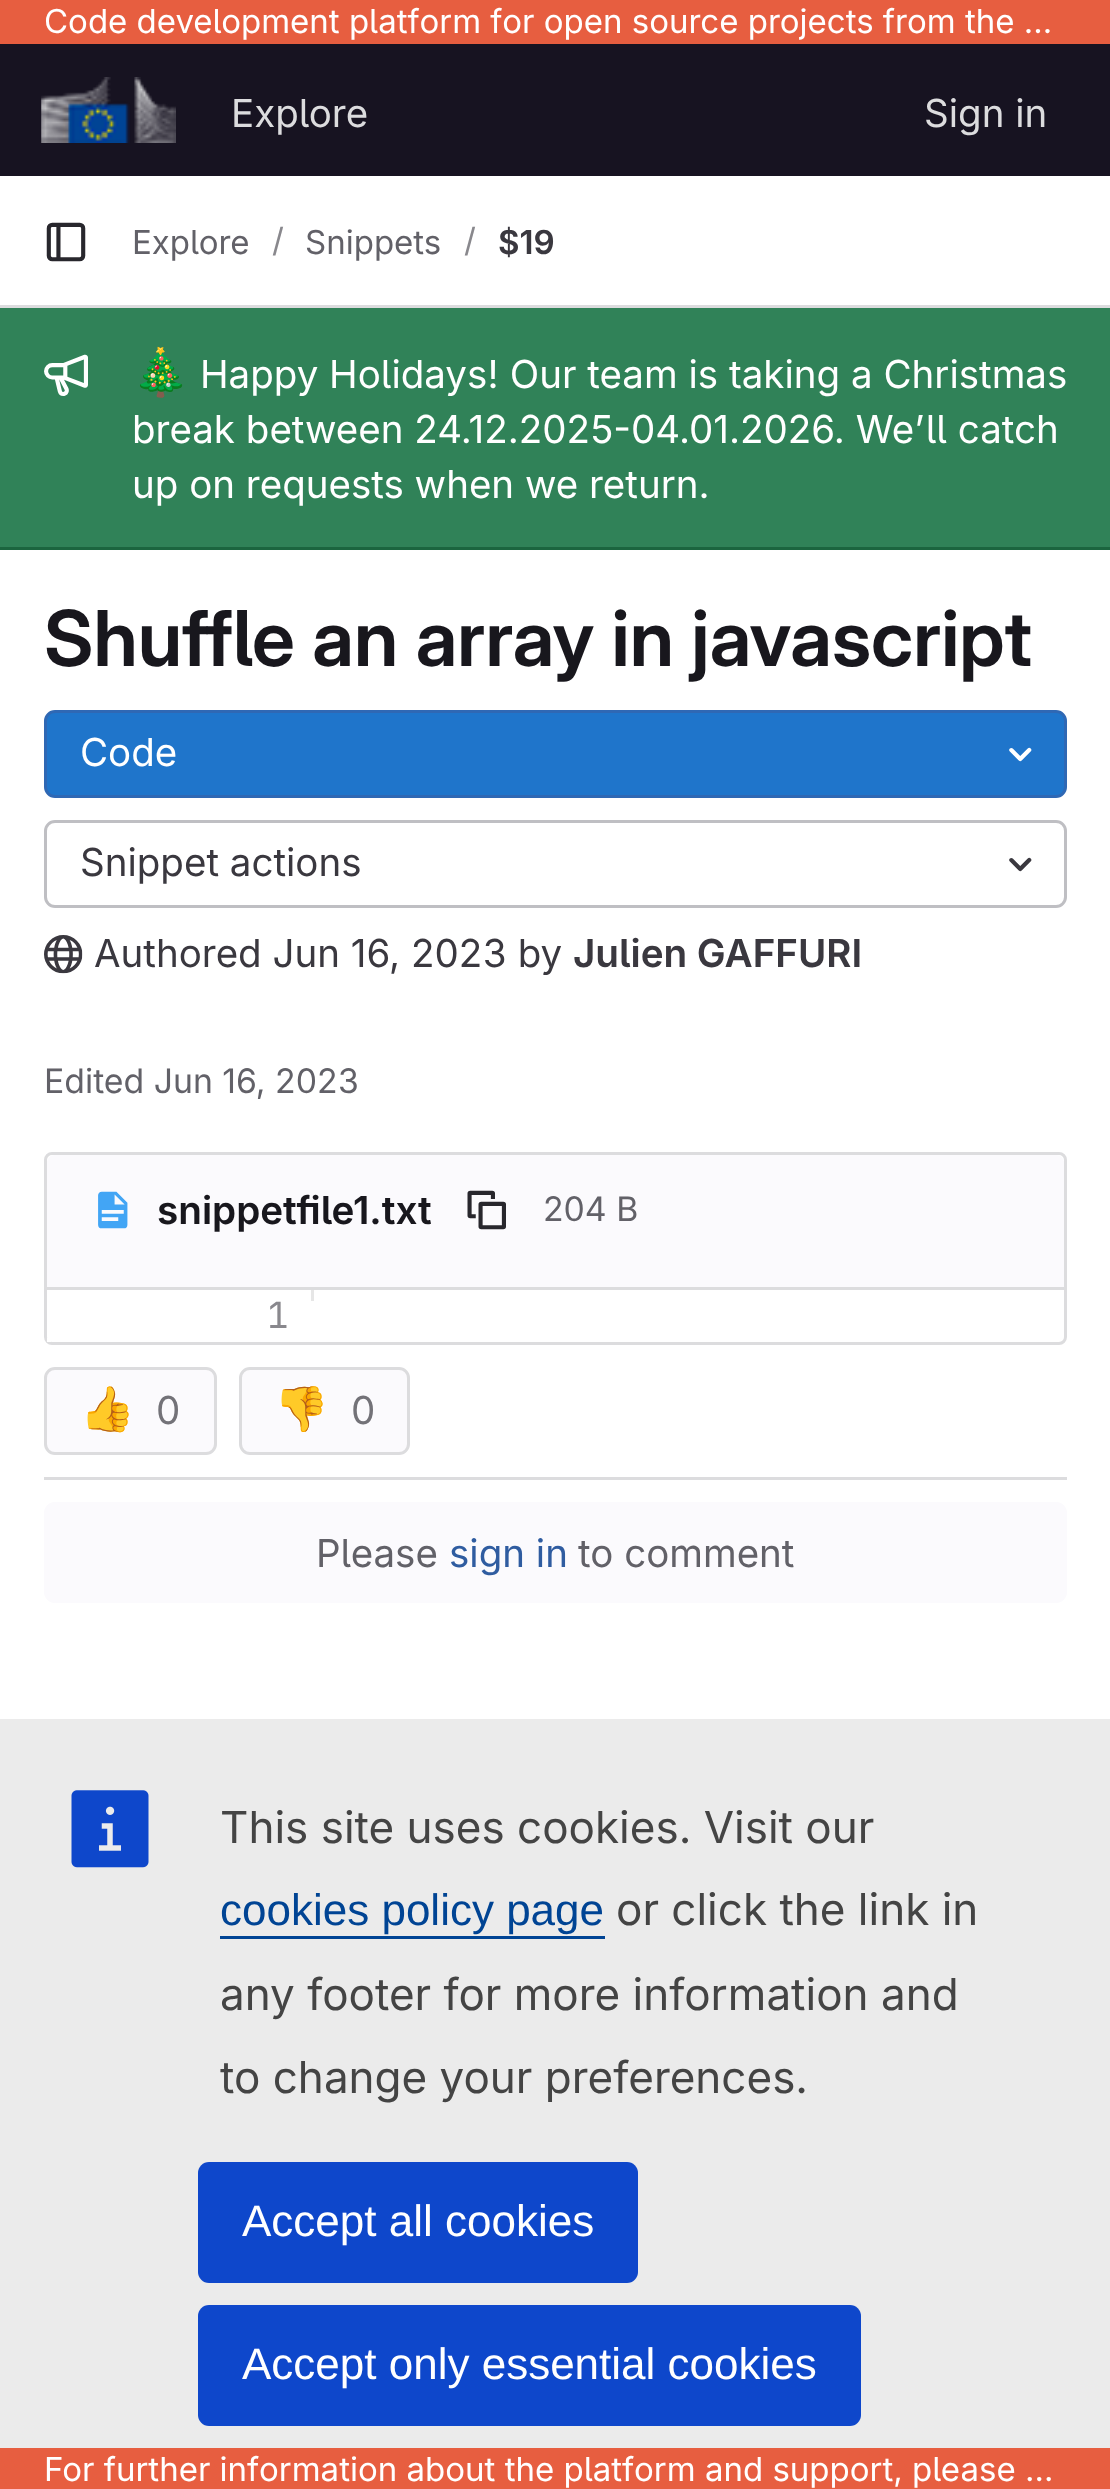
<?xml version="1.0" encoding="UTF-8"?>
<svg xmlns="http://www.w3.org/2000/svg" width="1110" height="2489">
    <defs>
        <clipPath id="clip1"><rect x="80" y="1386" width="102" height="50"/></clipPath>
        <clipPath id="clip2"><rect x="275" y="1386" width="99" height="50"/></clipPath>
    </defs>
    <rect width="100%" height="100%" fill="#FFFFFF"/>
    <rect x="0" y="0" width="1110" height="44" fill="#E75E40"/>
    <text x="44" y="33" font-family="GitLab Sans" font-size="33" fill="#FFFFFF">Code development platform for open source projects from the …</text>
    <rect x="0" y="44" width="1110" height="132" fill="#171321"/>
    <image x="41" y="77" width="135" height="66" href="img_01.png"/>
    <text x="231" y="127" font-family="GitLab Sans" font-size="38.5" fill="#DCDCDE">Explore</text>
    <text x="924" y="127" font-family="GitLab Sans" font-size="38.5" fill="#DCDCDE">Sign in</text>
    <rect x="0" y="305" width="1110" height="3" fill="#DCDCDE"/>
    <image x="46" y="222" width="40" height="40" href="img_02.png"/>
    <text x="132" y="254" font-family="GitLab Sans" font-size="33" fill="#626168">Explore</text>
    <text x="272" y="252" font-family="GitLab Sans" font-size="33" fill="#89888D">/</text>
    <text x="305" y="254" font-family="GitLab Sans" font-size="33" fill="#626168">Snippets</text>
    <text x="464" y="252" font-family="GitLab Sans" font-size="33" fill="#89888D">/</text>
    <text x="498" y="254" font-family="'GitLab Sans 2'" font-size="33" font-weight="600" fill="#3A383F">$19</text>
    <rect x="0" y="308" width="1110" height="239" fill="#308258"/>
    <rect x="0" y="547" width="1110" height="3" fill="#1B653F"/>
    <image x="44" y="354" width="44" height="42" href="img_03.png"/>
    <text x="132" y="388" font-family="Noto Color Emoji" font-size="46" fill="#FFFFFF">🎄</text>
    <text x="200" y="388" font-family="GitLab Sans" font-size="38.5" fill="#FFFFFF">Happy Holidays! Our team is taking a Christmas</text>
    <text font-family="GitLab Sans" font-size="38.5" fill="#FFFFFF">
        <tspan x="132" y="443">break between 24.12.2025-04.01.2026. We’ll catch</tspan>
        <tspan x="132" y="498">up on requests when we return.</tspan>
    </text>
    <text x="44" y="666" font-family="GitLab Sans" font-size="77" font-weight="600" fill="#18171D">Shuffle an array in javascript</text>
    <rect x="45.5" y="711.5" width="1020" height="85" rx="9.5" fill="#1F75CB" stroke="#2F68B4" stroke-width="3"/>
    <text x="80" y="766" font-family="GitLab Sans" font-size="38.5" fill="#FFFFFF">Code</text>
    <image x="1009" y="747" width="23" height="15" href="img_04.png"/>
    <rect x="45.5" y="821.5" width="1020" height="85" rx="9.5" fill="none" stroke="#BFBFC3" stroke-width="3"/>
    <text x="80" y="876" font-family="GitLab Sans" font-size="38.5" fill="#3A383F">Snippet actions</text>
    <image x="1009" y="857" width="23" height="15" href="img_05.png"/>
    <image x="44" y="935" width="39" height="39" href="img_06.png"/>
    <text x="94" y="967" font-family="GitLab Sans" font-size="38.5" fill="#3A383F">Authored Jun 16, 2023 by</text>
    <text x="573" y="967" font-family="'GitLab Sans 2'" font-size="38.5" font-weight="600" fill="#3A383F">Julien GAFFURI</text>
    <text x="44" y="1093" font-family="GitLab Sans" font-size="33.75" fill="#626168">Edited Jun 16, 2023</text>
    <rect x="45.5" y="1153.5" width="1020" height="190" rx="6.5" fill="none" stroke="#DCDCDE" stroke-width="3"/>
    <path d="M 55 1155 H 1056 C 1060.5 1155 1064 1158.5 1064 1163 V 1290 H 47 V 1163 C 47 1158.5 50.5 1155 55 1155 Z" fill="#FBFAFD"/>
    <rect x="47" y="1287" width="1017" height="3" fill="#DCDCDE"/>
    <image x="98" y="1191" width="30" height="38" href="img_07.png"/>
    <text x="157" y="1224" font-family="'GitLab Sans 2'" font-size="38.5" font-weight="600" fill="#18171D">snippetfile1.txt</text>
    <image x="467" y="1190" width="39" height="40" href="img_08.png"/>
    <text x="543" y="1221" font-family="GitLab Sans" font-size="33.75" fill="#626168">204 B</text>
    <rect x="311" y="1290" width="3" height="11" fill="#E6E6E6"/>
    <rect x="47" y="1338" width="4" height="4" fill="#FFFFFF"/>
    <text x="267" y="1328" font-family="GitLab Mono" font-size="36" fill="#89888D">1</text>
    <rect x="44" y="1477" width="1023" height="3" fill="#DCDCDE"/>
    <rect x="45.5" y="1368.5" width="170" height="85" rx="9.5" fill="#FBFAFD" stroke="#DCDCDE" stroke-width="3"/>
    <g clip-path="url(#clip1)">
        <text x="80" y="1424" font-family="Noto Color Emoji" font-size="44" fill="#737278">👍</text>
    </g>
    <text x="156" y="1424" font-family="GitLab Sans" font-size="38.5" fill="#737278">0</text>
    <rect x="240.5" y="1368.5" width="168" height="85" rx="9.5" fill="#FBFAFD" stroke="#DCDCDE" stroke-width="3"/>
    <g clip-path="url(#clip2)">
        <text x="274" y="1424" font-family="Noto Color Emoji" font-size="44" fill="#737278">👎</text>
    </g>
    <text x="351" y="1424" font-family="GitLab Sans" font-size="38.5" fill="#737278">0</text>
    <rect x="44" y="1502" width="1023" height="101" rx="11" fill="#FBFAFD"/>
    <text x="316" y="1567" font-family="GitLab Sans" font-size="38.5" fill="#626168">Please</text>
    <text x="449" y="1567" font-family="GitLab Sans" font-size="38.5" fill="#2F5CA0">sign in</text>
    <text x="578" y="1567" font-family="GitLab Sans" font-size="38.5" fill="#626168">to comment</text>
    <rect x="0" y="1719" width="1110" height="729" fill="#EBEBEB"/>
    <image x="71" y="1790" width="78" height="78" href="img_09.png"/>
    <text x="220" y="1843" font-family="Inter" font-size="44" fill="#444444">This site uses cookies. Visit our</text>
    <text x="220" y="1925" font-family="Liberation Sans" font-size="44" fill="#004494">cookies policy page</text>
    <rect x="220" y="1936" width="385" height="3" fill="#004494"/>
    <text x="616" y="1925" font-family="Inter" font-size="44" fill="#444444">or click the link in</text>
    <text font-family="Inter" font-size="44" fill="#444444">
        <tspan x="220" y="2010">any footer for more information and</tspan>
        <tspan x="220" y="2093">to change your preferences.</tspan>
    </text>
    <rect x="198" y="2162" width="440" height="121" rx="11" fill="#0E47CB"/>
    <text x="242" y="2236" font-family="Liberation Sans" font-size="44" fill="#FFFFFF">Accept all cookies</text>
    <rect x="198" y="2305" width="663" height="121" rx="11" fill="#0E47CB"/>
    <text x="242" y="2379" font-family="Liberation Sans" font-size="44" fill="#FFFFFF">Accept only essential cookies</text>
    <rect x="0" y="2448" width="1110" height="41" fill="#E75E40"/>
    <text x="44" y="2481" font-family="GitLab Sans" font-size="33" fill="#FFFFFF">For further information about the platform and support, please …</text>
</svg>
